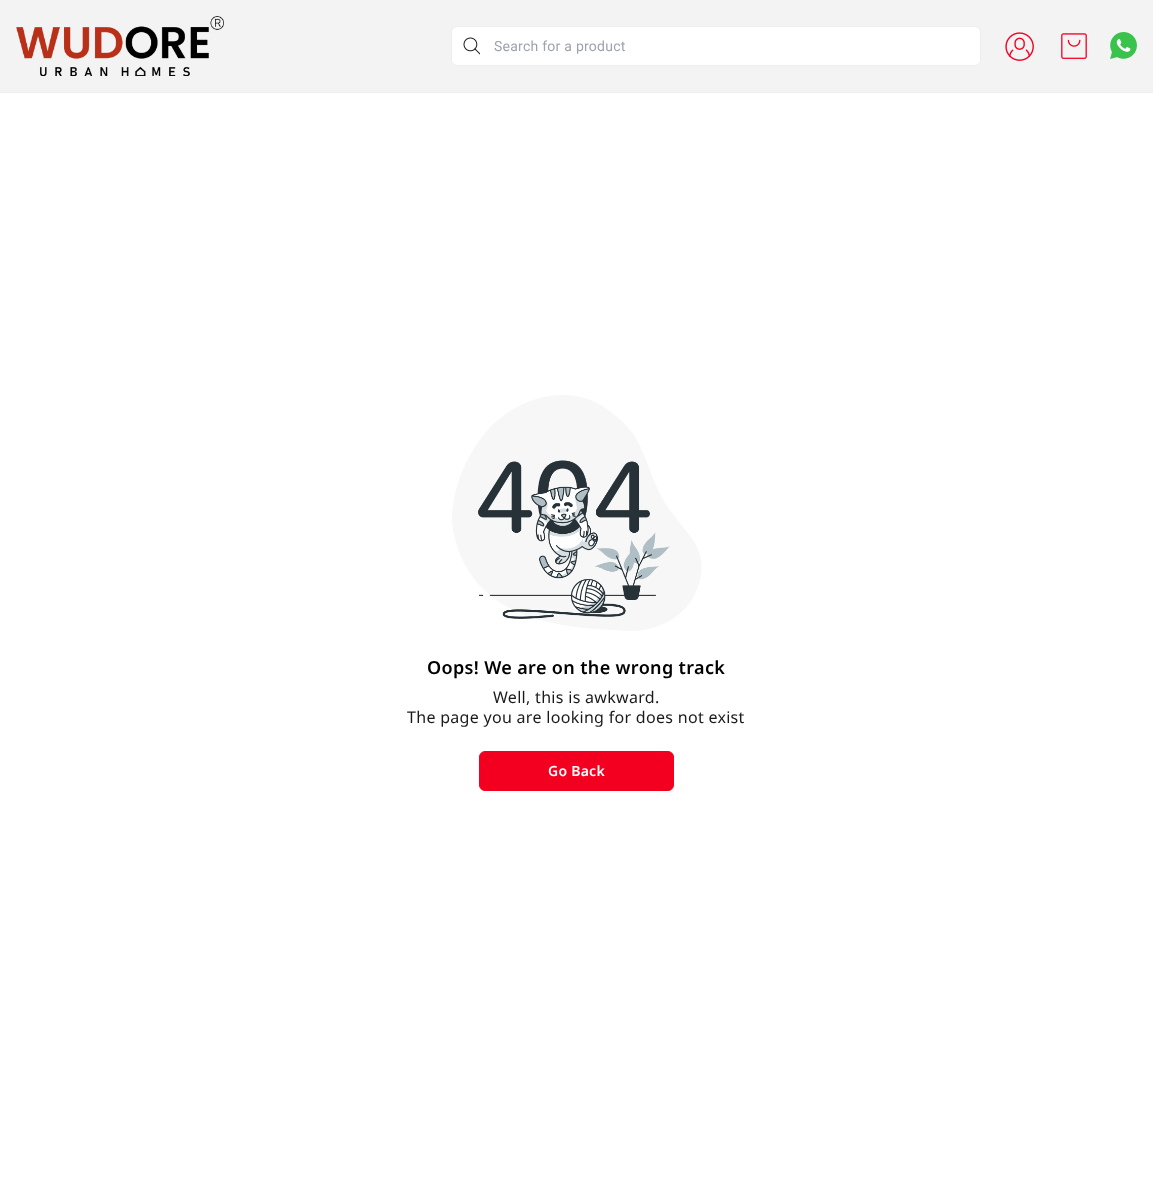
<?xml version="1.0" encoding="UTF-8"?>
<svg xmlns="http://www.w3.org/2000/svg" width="1153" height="1178">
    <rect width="100%" height="100%" fill="#FFFFFF"/>
    <rect x="0" y="92" width="1153" height="1" fill="#EEEEEE"/>
    <rect x="0" y="0" width="1153" height="92" fill="#F3F3F3"/>
    <image x="16" y="16" width="208" height="60" href="img_01.png"/>
    <rect x="451.5" y="26.5" width="529" height="39" rx="5.5" fill="#FFFFFF" stroke="#EEEEEE"/>
    <image x="463" y="37" width="17" height="18" href="img_02.png"/>
    <text x="494" y="51" font-family="Roboto" font-size="14" letter-spacing="0.25" fill="#9CA3AF">Search for a product</text>
    <image x="1005" y="32" width="29" height="29" href="img_03.png"/>
    <image x="1061" y="33" width="26" height="26" href="img_04.png"/>
    <image x="1110" y="32" width="27" height="27" href="img_05.png"/>
    <image x="452" y="395" width="250" height="236" href="img_06.png"/>
    <text x="427" y="674" font-family="Noto Sans" font-size="18" font-weight="600" letter-spacing="0.35" fill="#000000">Oops! We are on the wrong track</text>
    <text x="493" y="703" font-family="Noto Sans" font-size="16" letter-spacing="0.3" fill="#1A1A1A">Well, this is awkward.</text>
    <text x="407" y="723" font-family="Noto Sans" font-size="16" letter-spacing="0.3" fill="#1A1A1A">The page you are looking for does not exist</text>
    <rect x="479.5" y="751.5" width="194" height="39" rx="5.5" fill="#F30020" stroke="#F30020"/>
    <text x="548" y="776" font-family="Noto Sans" font-size="14" font-weight="600" letter-spacing="0.25" fill="#FFFFFF">Go Back</text>
</svg>
